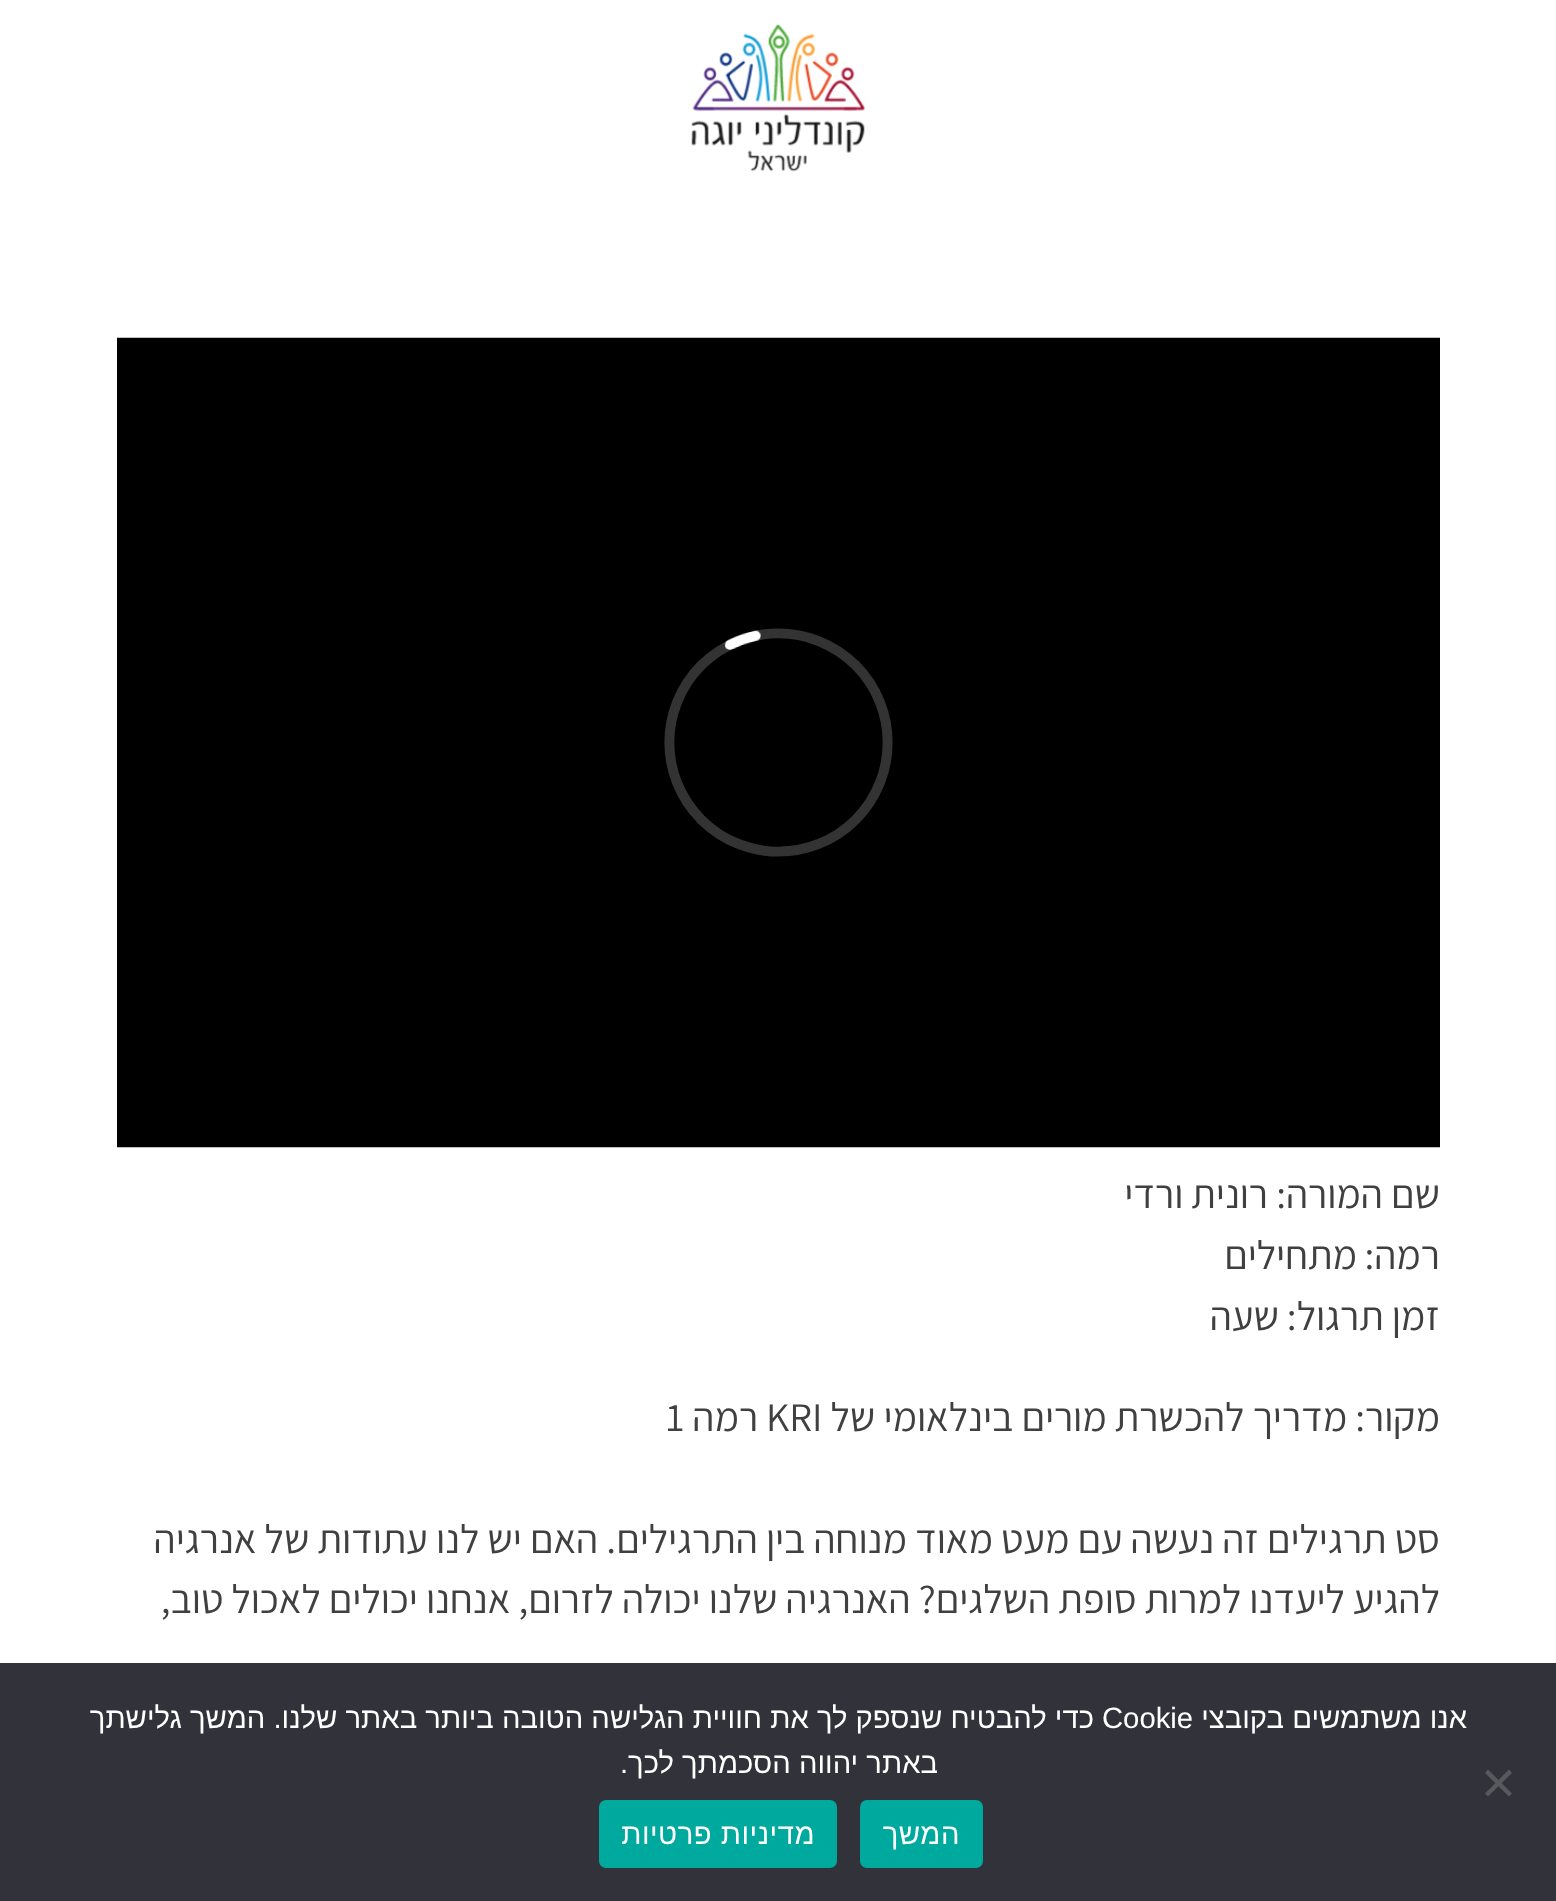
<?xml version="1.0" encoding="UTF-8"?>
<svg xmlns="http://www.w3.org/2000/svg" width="1556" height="1901">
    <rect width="100%" height="100%" fill="#FFFFFF"/>
    <image x="691" y="24" width="175" height="148" href="img_01.png"/>
    <image x="117" y="337" width="1323" height="811" href="img_02.png"/>
    <text x="1440" y="1208" font-family="Assistant" font-size="40.5" direction="rtl" fill="#404040">שם המורה:</text>
    <text x="1268" y="1208" font-family="Assistant" font-size="40.5" direction="rtl" fill="#404040">רונית ורדי</text>
    <text x="1440" y="1269" font-family="Assistant" font-size="40.5" direction="rtl" fill="#404040">רמה:</text>
    <text x="1357" y="1269" font-family="Assistant" font-size="40.5" direction="rtl" fill="#404040">מתחילים</text>
    <text x="1440" y="1330" font-family="Assistant" font-size="40.5" direction="rtl" fill="#404040">זמן תרגול:</text>
    <text x="1279" y="1330" font-family="Assistant" font-size="40.5" direction="rtl" fill="#404040">שעה</text>
    <text x="1440" y="1431" font-family="Assistant" font-size="40.5" direction="rtl" fill="#404040">מקור: מדריך להכשרת מורים בינלאומי של</text>
    <text x="766" y="1431" font-family="Assistant" font-size="40.5" fill="#404040">KRI</text>
    <text x="758" y="1431" font-family="Assistant" font-size="40.5" direction="rtl" fill="#404040">רמה</text>
    <text x="666" y="1431" font-family="Assistant" font-size="40.5" fill="#404040">1</text>
    <text font-family="Assistant" font-size="40.5" direction="rtl" fill="#404040">
        <tspan x="1440" y="1553">סט תרגילים זה נעשה עם מעט מאוד מנוחה בין התרגילים. האם יש לנו עתודות של אנרגיה</tspan>
        <tspan x="1440" y="1613">להגיע ליעדנו למרות סופת השלגים? האנרגיה שלנו יכולה לזרום, אנחנו יכולים לאכול טוב,</tspan>
    </text>
    <rect x="0" y="1663" width="1556" height="238" fill="#32323A"/>
    <text x="1467" y="1728" font-family="Liberation Sans" font-size="29.25" direction="rtl" fill="#FFFFFF">אנו משתמשים בקובצי</text>
    <text x="1102" y="1728" font-family="Liberation Sans" font-size="29.25" fill="#FFFFFF">Cookie</text>
    <text x="1094" y="1728" font-family="Liberation Sans" font-size="29.25" direction="rtl" fill="#FFFFFF">כדי להבטיח שנספק לך את חוויית הגלישה הטובה ביותר באתר שלנו. המשך גלישתך</text>
    <text x="938" y="1773" font-family="Liberation Sans" font-size="29.25" direction="rtl" fill="#FFFFFF">באתר יהווה הסכמתך לכך.</text>
    <path d="M 1509 1769.5 L 1512 1773 L 1488 1796.5 L 1485 1793.5 Z" fill="#59595D"/>
    <path d="M 1485 1773 L 1488 1769.5 L 1512 1793.5 L 1509 1796.5 Z" fill="#59595D"/>
    <rect x="860" y="1800" width="123" height="68" rx="7" fill="#00A99D"/>
    <text x="960" y="1844" font-family="Liberation Sans" font-size="29.25" letter-spacing="0.5" direction="rtl" fill="#FFFFFF">המשך</text>
    <rect x="599" y="1800" width="238" height="68" rx="7" fill="#00A99D"/>
    <text x="815" y="1844" font-family="Liberation Sans" font-size="29.25" letter-spacing="0.5" direction="rtl" fill="#FFFFFF">מדיניות פרטיות</text>
</svg>
